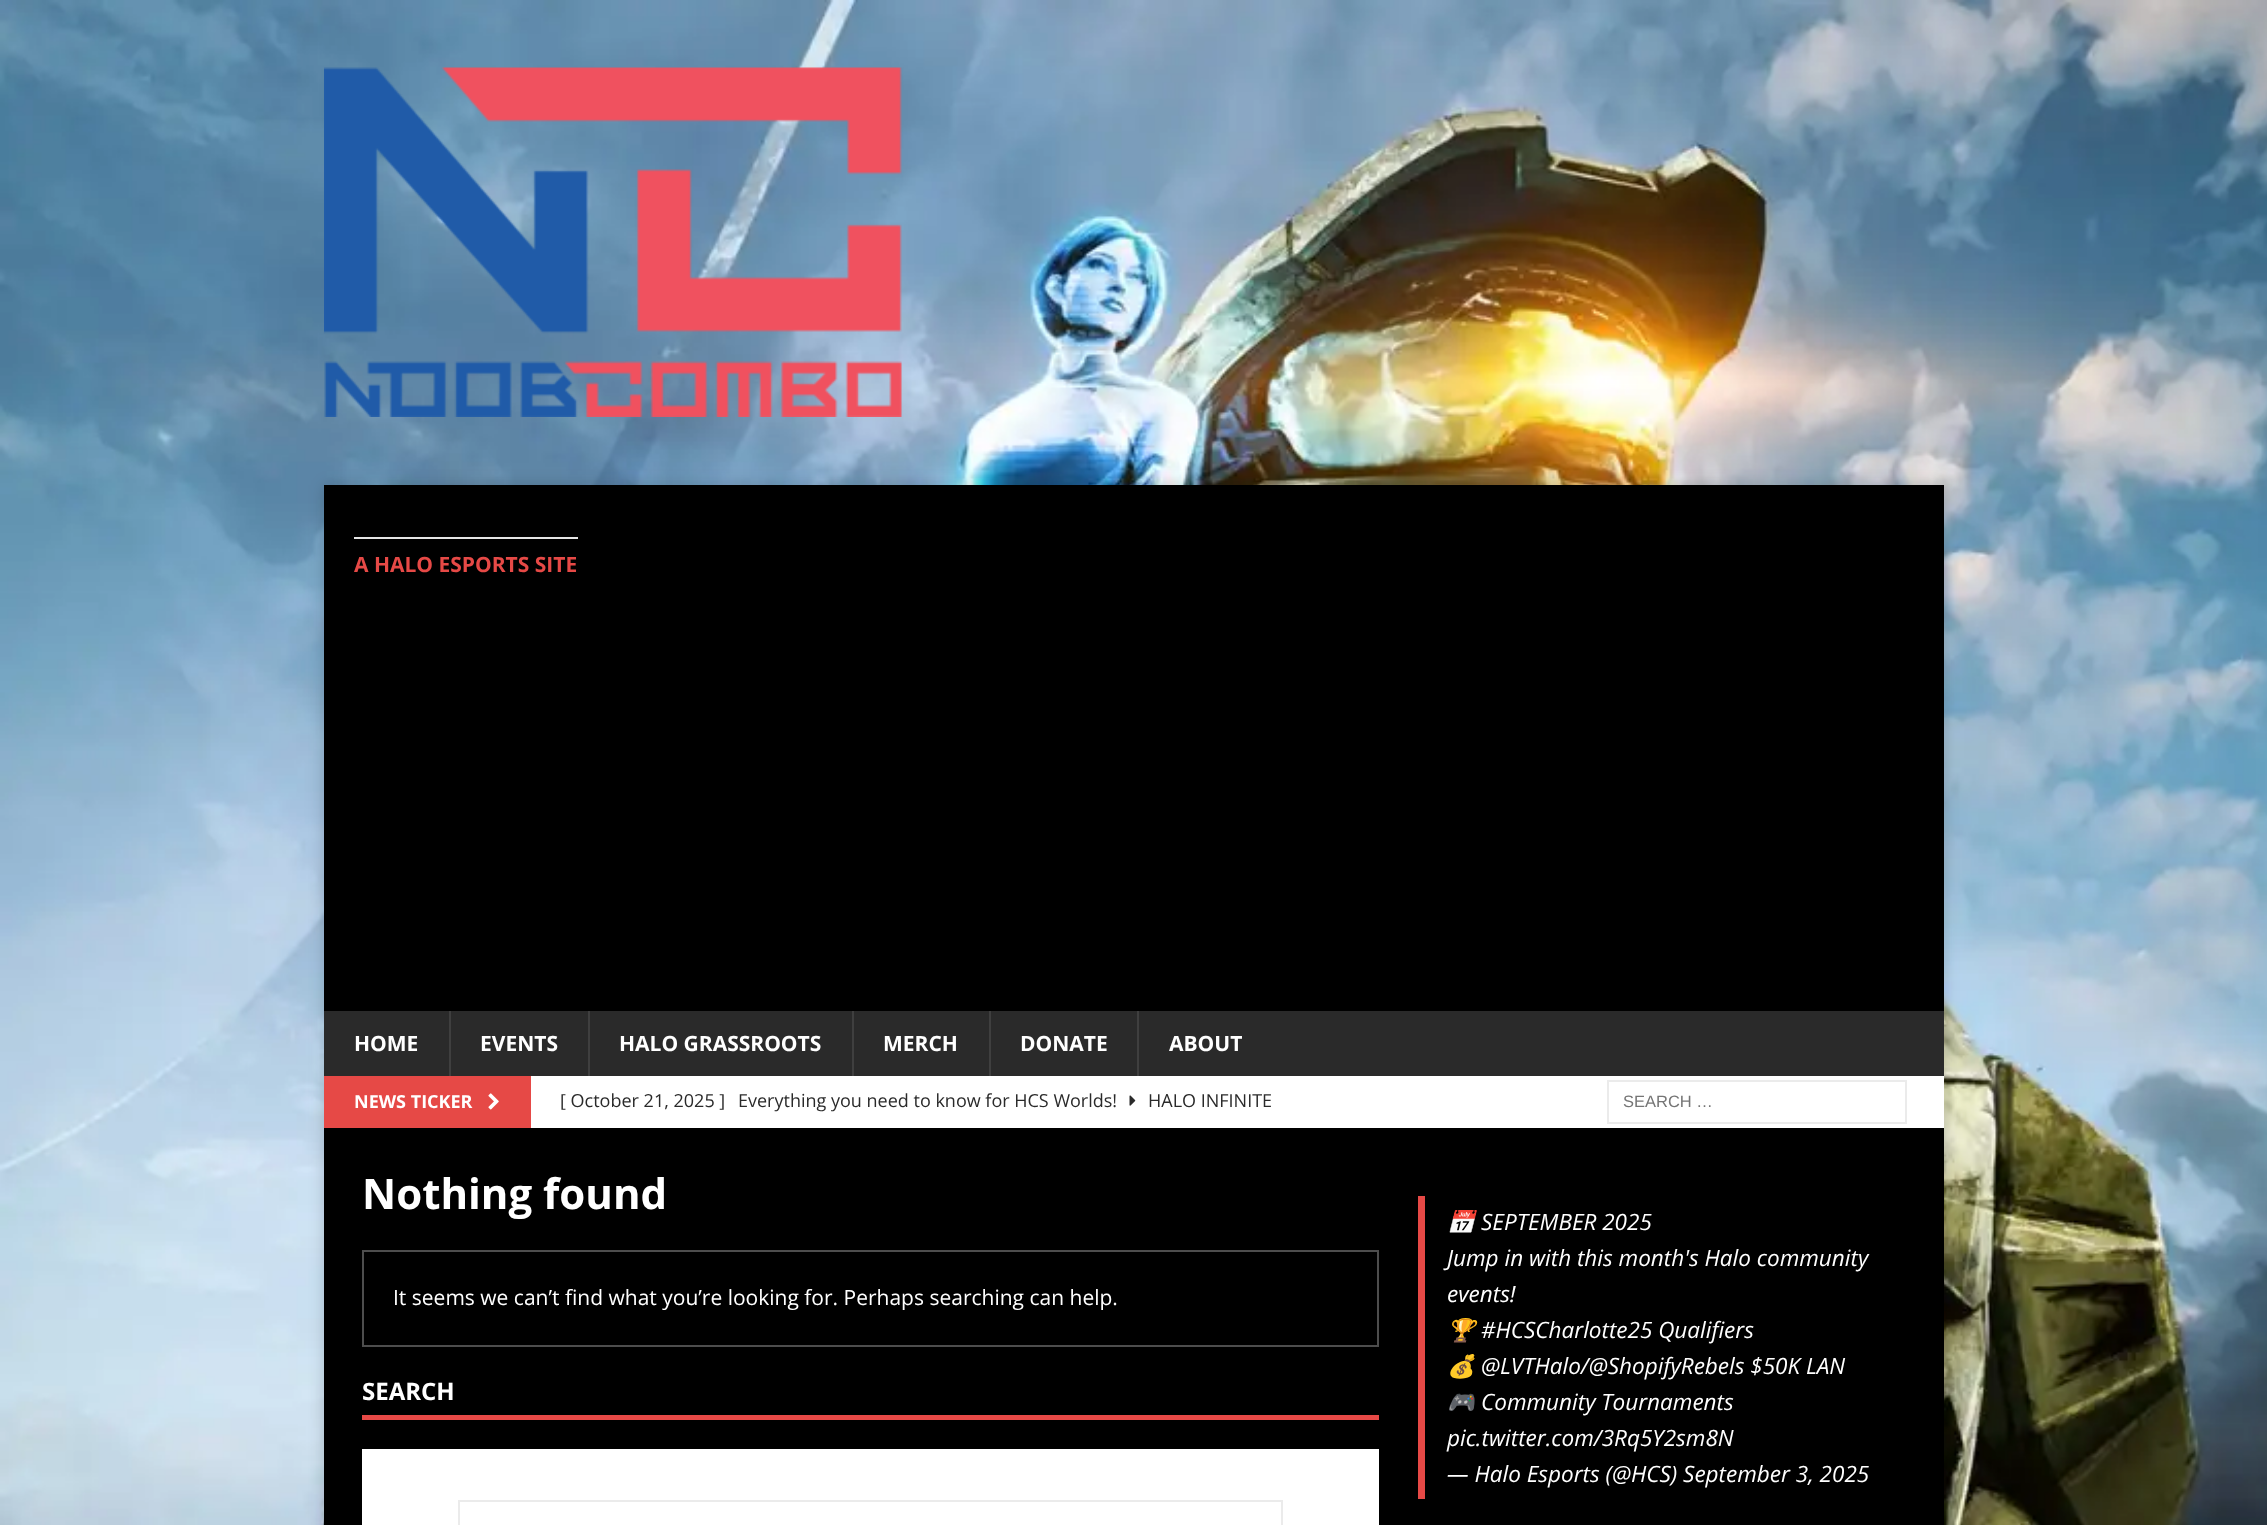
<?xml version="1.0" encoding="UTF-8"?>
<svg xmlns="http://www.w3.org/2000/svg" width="2267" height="1525">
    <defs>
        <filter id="blur1" x="-50%" y="-200%" width="200%" height="500%"><feGaussianBlur stdDeviation="7.5"/></filter>
    </defs>
    <rect width="100%" height="100%" fill="#FFFFFF"/>
    <image x="0" y="0" width="2267" height="1525" href="img_01.png"/>
    <image x="324" y="67" width="578" height="350" href="img_02.png"/>
    <rect x="324" y="485" width="1620" height="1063" fill="#323232" fill-opacity="0.17" filter="url(#blur1)"/>
    <rect x="324" y="485" width="1620" height="526" fill="#000000"/>
    <rect x="354" y="537" width="224" height="2" fill="#E5E5E5"/>
    <text x="354" y="572" font-family="Open Sans" font-size="21" font-weight="700" fill="#E64946">A HALO ESPORTS SITE</text>
    <rect x="324" y="1011" width="1620" height="65" fill="#2A2A2A"/>
    <text x="354" y="1051" font-family="Open Sans" font-size="21" font-weight="700" fill="#FFFFFF">HOME</text>
    <rect x="449" y="1011" width="2" height="65" fill="#3F3F3F"/>
    <text x="480" y="1051" font-family="Open Sans" font-size="21" font-weight="700" fill="#FFFFFF">EVENTS</text>
    <rect x="588" y="1011" width="2" height="65" fill="#3F3F3F"/>
    <text x="619" y="1051" font-family="Open Sans" font-size="21" font-weight="700" fill="#FFFFFF">HALO GRASSROOTS</text>
    <rect x="852" y="1011" width="2" height="65" fill="#3F3F3F"/>
    <text x="883" y="1051" font-family="Open Sans" font-size="21" font-weight="700" fill="#FFFFFF">MERCH</text>
    <rect x="989" y="1011" width="2" height="65" fill="#3F3F3F"/>
    <text x="1020" y="1051" font-family="Open Sans" font-size="21" font-weight="700" fill="#FFFFFF">DONATE</text>
    <rect x="1137" y="1011" width="2" height="65" fill="#3F3F3F"/>
    <text x="1169" y="1051" font-family="Open Sans" font-size="21" font-weight="700" fill="#FFFFFF">ABOUT</text>
    <rect x="531" y="1076" width="1413" height="52" fill="#FFFFFF"/>
    <rect x="324" y="1076" width="207" height="52" fill="#E64946"/>
    <text x="354" y="1108" font-family="Open Sans" font-size="18" font-weight="700" fill="#FFFFFF">NEWS TICKER</text>
    <image x="488" y="1093" width="11" height="17" href="img_03.png"/>
    <text x="560" y="1107" font-family="Open Sans" font-size="18" fill="#2A2A2A">[ October 21, 2025 ]</text>
    <text x="738" y="1107" font-family="Open Sans" font-size="18" fill="#2A2A2A">Everything you need to know for HCS Worlds!</text>
    <image x="1129" y="1095" width="7" height="11" href="img_04.png"/>
    <text x="1148" y="1107" font-family="Open Sans" font-size="18" fill="#2A2A2A">HALO INFINITE</text>
    <rect x="1608" y="1081" width="298" height="42" fill="none" stroke="#EBEBEB" stroke-width="2"/>
    <text x="1623" y="1107" font-family="Liberation Sans" font-size="16.5" fill="#757575">SEARCH …</text>
    <rect x="324" y="1128" width="1620" height="397" fill="#000000"/>
    <text x="362" y="1209" font-family="Open Sans" font-size="42" font-weight="700" fill="#FFFFFF">Nothing found</text>
    <rect x="363" y="1251" width="1015" height="95" fill="none" stroke="#4D4D4D" stroke-width="2"/>
    <text x="393" y="1305" font-family="Open Sans" font-size="21" fill="#FFFFFF">It seems we can’t find what you’re looking for. Perhaps searching can help.</text>
    <rect x="362" y="1415" width="1017" height="5" fill="#E64946"/>
    <text x="362" y="1400" font-family="Open Sans" font-size="24" font-weight="700" fill="#FFFFFF">SEARCH</text>
    <rect x="362" y="1449" width="1017" height="76" fill="#FFFFFF"/>
    <rect x="459" y="1501" width="823" height="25" fill="none" stroke="#EBEBEB" stroke-width="2"/>
    <rect x="1418" y="1196" width="7" height="303" fill="#E64946"/>
    <text x="1447" y="1230" font-family="Noto Color Emoji" font-size="22.5" font-style="italic" fill="#FFFFFF">📅</text>
    <text x="1481" y="1230" font-family="Open Sans" font-size="22.5" font-style="italic" fill="#FFFFFF">SEPTEMBER 2025</text>
    <text font-family="Open Sans" font-size="22.5" font-style="italic" fill="#FFFFFF">
        <tspan x="1447" y="1266">Jump in with this month's Halo community</tspan>
        <tspan x="1447" y="1302">events!</tspan>
    </text>
    <text x="1447" y="1338" font-family="Noto Color Emoji" font-size="22.5" font-style="italic" fill="#FFFFFF">🏆</text>
    <text x="1481" y="1338" font-family="Open Sans" font-size="22.5" font-style="italic" fill="#FFFFFF">#HCSCharlotte25 Qualifiers</text>
    <text x="1447" y="1374" font-family="Noto Color Emoji" font-size="22.5" font-style="italic" fill="#FFFFFF">💰</text>
    <text x="1481" y="1374" font-family="Open Sans" font-size="22.5" font-style="italic" fill="#FFFFFF">@LVTHalo/@ShopifyRebels $50K LAN</text>
    <text x="1447" y="1410" font-family="Noto Color Emoji" font-size="22.5" font-style="italic" fill="#FFFFFF">🎮</text>
    <text x="1481" y="1410" font-family="Open Sans" font-size="22.5" font-style="italic" fill="#FFFFFF">Community Tournaments</text>
    <text font-family="Open Sans" font-size="22.5" font-style="italic" fill="#FFFFFF">
        <tspan x="1447" y="1446">pic.twitter.com/3Rq5Y2sm8N</tspan>
        <tspan x="1447" y="1482">— Halo Esports (@HCS) September 3, 2025</tspan>
    </text>
</svg>
